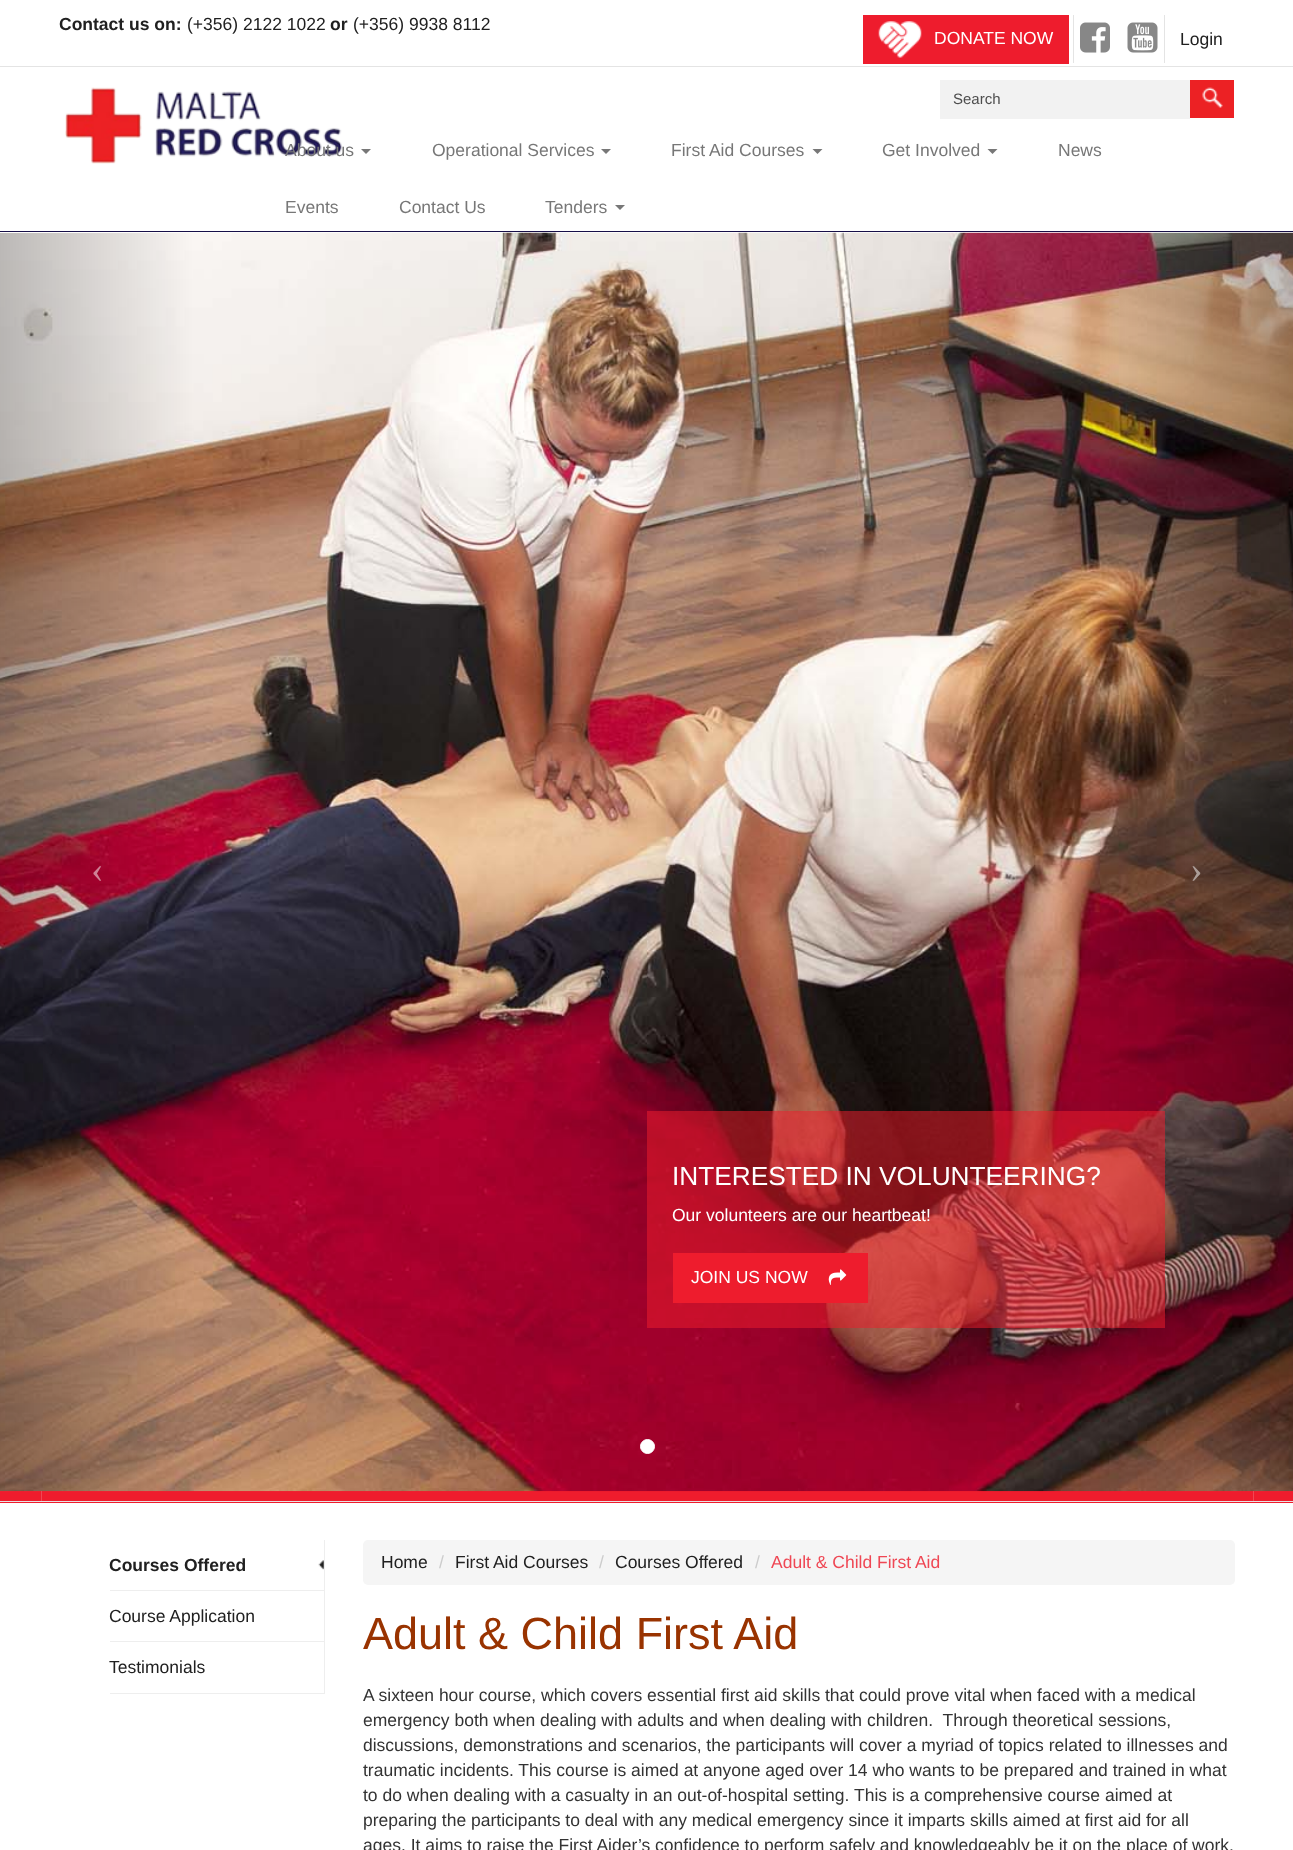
<?xml version="1.0" encoding="UTF-8"?>
<svg xmlns="http://www.w3.org/2000/svg" width="1293" height="1850">
    <rect width="100%" height="100%" fill="#FFFFFF"/>
    <rect x="0" y="231" width="1293" height="1" fill="#170F48"/>
    <rect x="0" y="66" width="1293" height="1" fill="#E4E4E4"/>
    <text x="59" y="30" font-family="Liberation Sans" font-size="17.5" font-weight="700" fill="#202020">Contact us on:</text>
    <text x="187" y="30" font-family="Liberation Sans" font-size="17.5" fill="#202020">(+356) 2122 1022</text>
    <text x="330" y="30" font-family="Liberation Sans" font-size="17.5" font-weight="700" fill="#202020">or</text>
    <text x="353" y="30" font-family="Liberation Sans" font-size="17.5" fill="#202020">(+356) 9938 8112</text>
    <rect x="863" y="15" width="206" height="49" fill="#EE1C2D"/>
    <image x="878" y="21" width="44" height="37" href="img_01.png"/>
    <text x="934" y="44" font-family="Liberation Sans" font-size="17.5" fill="#FFFFFF">DONATE NOW</text>
    <rect x="1164" y="15" width="1" height="48" fill="#E4E4E4"/>
    <rect x="1073" y="15" width="1" height="48" fill="#E4E4E4"/>
    <image x="1080" y="22" width="30" height="31" href="img_02.png"/>
    <image x="1127" y="22" width="31" height="31" href="img_03.png"/>
    <text x="1180" y="45" font-family="Liberation Sans" font-size="17.5" fill="#202020">Login</text>
    <image x="65" y="87" width="278" height="77" href="img_04.png"/>
    <rect x="940" y="80" width="250" height="39" fill="#F2F2F2"/>
    <text x="953" y="104" font-family="Liberation Sans" font-size="15" fill="#4D4D4D">Search</text>
    <rect x="1190" y="80" width="44" height="38" fill="#EC2124"/>
    <image x="1202" y="87" width="21" height="21" href="img_05.png"/>
    <text x="285" y="156" font-family="Liberation Sans" font-size="17.5" fill="#777777">About us</text>
    <path d="M 361 149 H 371 L 366 154 Z" fill="#777777"/>
    <text x="432" y="156" font-family="Liberation Sans" font-size="17.5" fill="#777777">Operational Services</text>
    <path d="M 601 149 H 611 L 606 154 Z" fill="#777777"/>
    <text x="671" y="156" font-family="Liberation Sans" font-size="17.5" fill="#777777">First Aid Courses</text>
    <path d="M 812.5 149 H 822.5 L 817.5 154 Z" fill="#777777"/>
    <text x="882" y="156" font-family="Liberation Sans" font-size="17.5" fill="#777777">Get Involved</text>
    <path d="M 987.5 149 H 997.5 L 992.5 154 Z" fill="#777777"/>
    <text x="1058" y="156" font-family="Liberation Sans" font-size="17.5" fill="#777777">News</text>
    <text x="285" y="213" font-family="Liberation Sans" font-size="17.5" fill="#777777">Events</text>
    <text x="399" y="213" font-family="Liberation Sans" font-size="17.5" fill="#777777">Contact Us</text>
    <text x="545" y="213" font-family="Liberation Sans" font-size="17.5" fill="#777777">Tenders</text>
    <path d="M 615 205 H 625 L 620 210 Z" fill="#777777"/>
    <rect x="0" y="1491" width="1293" height="12" fill="#EF1C2D"/>
    <image x="0" y="232" width="1293" height="1260" href="img_06.png"/>
    <text x="91" y="882" font-family="Liberation Serif" font-size="38" fill="#CF8095">‹</text>
    <text x="1190" y="882" font-family="Liberation Serif" font-size="38" fill="#AB9D98">›</text>
    <rect x="647" y="1111" width="518" height="217" fill="#EE1D2C" fill-opacity="0.52"/>
    <text x="672" y="1185" font-family="Liberation Sans" font-size="26.25" fill="#FFFFFF">INTERESTED IN VOLUNTEERING?</text>
    <text x="672" y="1221" font-family="Liberation Sans" font-size="17.5" fill="#FFFFFF">Our volunteers are our heartbeat!</text>
    <rect x="673" y="1253" width="195" height="50" fill="#EE1C2D"/>
    <text x="691" y="1283" font-family="Liberation Sans" font-size="17.5" fill="#FFFFFF">JOIN US NOW</text>
    <image x="828" y="1269" width="19" height="16" href="img_07.png"/>
    <circle cx="647.5" cy="1446.5" r="7" fill="#FFFFFF" stroke="#FFFFFF"/>
    <rect x="0" y="1501" width="1293" height="1" fill="#E4E4E4"/>
    <rect x="1253" y="1491" width="1" height="10" fill="#EF4754"/>
    <rect x="41" y="1491" width="1" height="10" fill="#EF4754"/>
    <rect x="324" y="1540" width="1" height="154" fill="#EEEEEE"/>
    <rect x="110" y="1590" width="214" height="1" fill="#EEEEEE"/>
    <image x="318" y="1560" width="6" height="10" href="img_08.png"/>
    <text x="109" y="1571" font-family="Liberation Sans" font-size="17.5" font-weight="700" fill="#202020">Courses Offered</text>
    <rect x="110" y="1641" width="214" height="1" fill="#EEEEEE"/>
    <text x="109" y="1622" font-family="Liberation Sans" font-size="17.5" fill="#202020">Course Application</text>
    <rect x="110" y="1693" width="214" height="1" fill="#EEEEEE"/>
    <text x="109" y="1673" font-family="Liberation Sans" font-size="17.5" fill="#202020">Testimonials</text>
    <rect x="363" y="1540" width="872" height="45" rx="5" fill="#F5F5F5"/>
    <text x="381" y="1568" font-family="Liberation Sans" font-size="17.5" fill="#202020">Home</text>
    <text x="439" y="1568" font-family="Liberation Sans" font-size="17.5" fill="#CCCCCC">/</text>
    <text x="455" y="1568" font-family="Liberation Sans" font-size="17.5" fill="#202020">First Aid Courses</text>
    <text x="599" y="1568" font-family="Liberation Sans" font-size="17.5" fill="#CCCCCC">/</text>
    <text x="615" y="1568" font-family="Liberation Sans" font-size="17.5" fill="#202020">Courses Offered</text>
    <text x="755" y="1568" font-family="Liberation Sans" font-size="17.5" fill="#CCCCCC">/</text>
    <text x="771" y="1568" font-family="Liberation Sans" font-size="17.5" fill="#EF4754">Adult &amp; Child First Aid</text>
    <text x="363" y="1649" font-family="Liberation Sans" font-size="45" fill="#993300">Adult &amp; Child First Aid</text>
    <text font-family="Liberation Sans" font-size="17.5" fill="#333333" xml:space="preserve"><tspan x="363" y="1701">A sixteen hour course, which covers essential first aid skills that could prove vital when faced with a medical</tspan><tspan x="363" y="1726">emergency both when dealing with adults and when dealing with children.  Through theoretical sessions,</tspan><tspan x="363" y="1751">discussions, demonstrations and scenarios, the participants will cover a myriad of topics related to illnesses and</tspan><tspan x="363" y="1776">traumatic incidents. This course is aimed at anyone aged over 14 who wants to be prepared and trained in what</tspan><tspan x="363" y="1801">to do when dealing with a casualty in an out-of-hospital setting. This is a comprehensive course aimed at</tspan><tspan x="363" y="1826">preparing the participants to deal with any medical emergency since it imparts skills aimed at first aid for all</tspan><tspan x="363" y="1851">ages. It aims to raise the First Aider’s confidence to perform safely and knowledgeably be it on the place of work,</tspan></text>
</svg>
